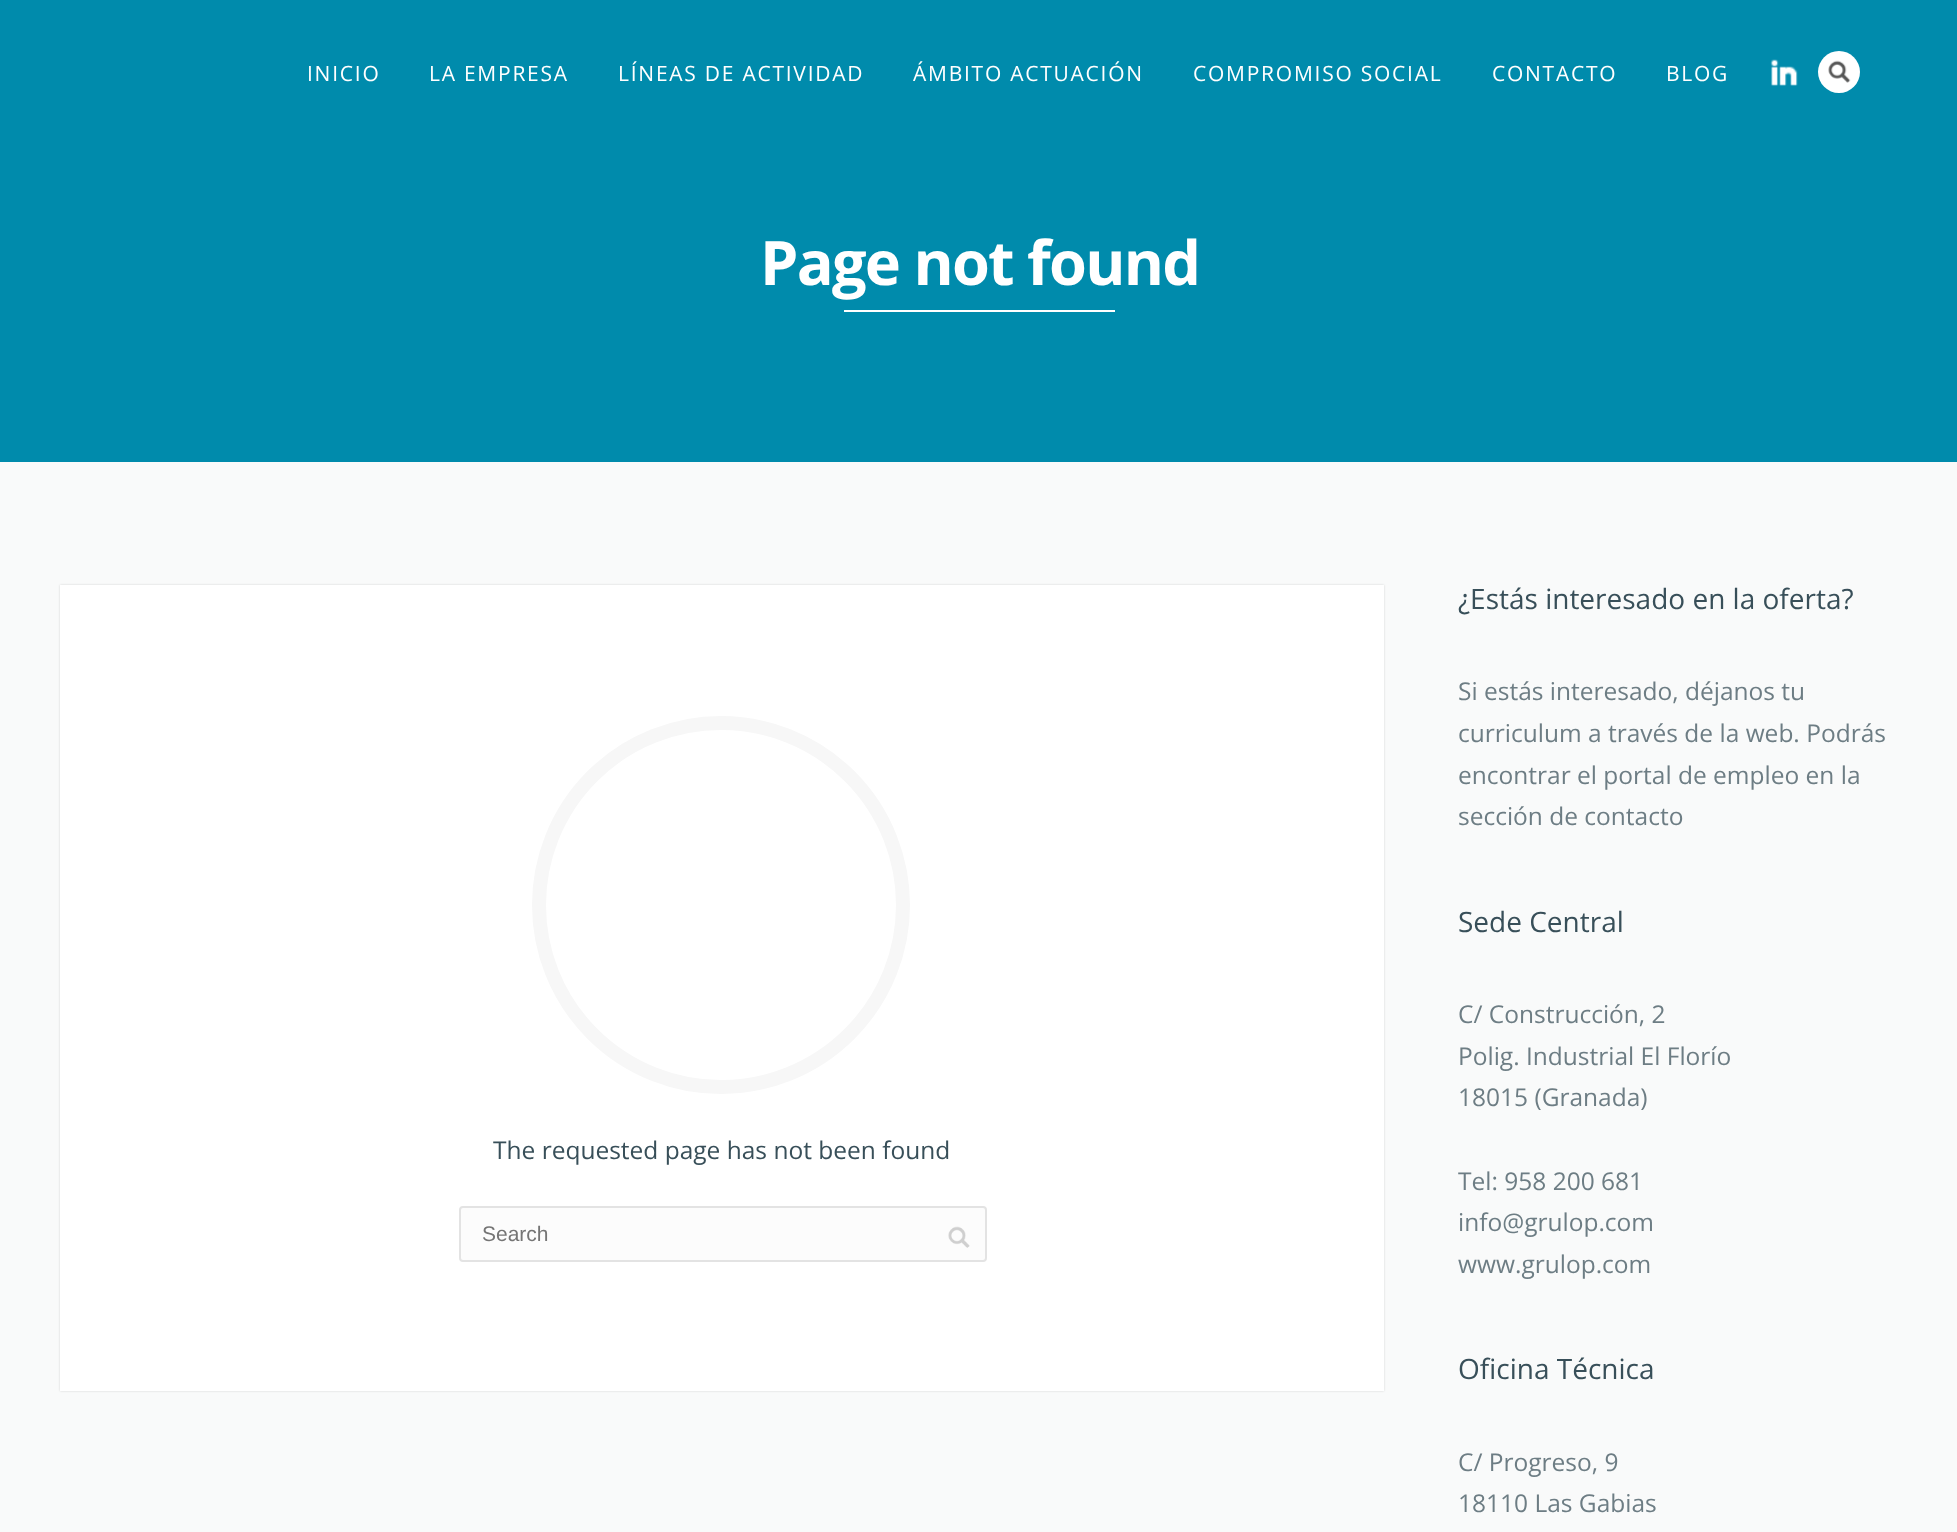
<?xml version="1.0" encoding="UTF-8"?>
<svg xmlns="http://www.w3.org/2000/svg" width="1957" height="1532">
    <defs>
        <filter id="blur1" x="-50%" y="-200%" width="200%" height="500%"><feGaussianBlur stdDeviation="1"/></filter>
    </defs>
    <rect width="100%" height="100%" fill="#F9FAFA"/>
    <rect x="0" y="0" width="1957" height="462" fill="#008BAC"/>
    <text x="307" y="81" font-family="Open Sans" font-size="21" letter-spacing="1.75" fill="#FFFFFF">INICIO</text>
    <text x="429" y="81" font-family="Open Sans" font-size="21" letter-spacing="1.75" fill="#FFFFFF">LA EMPRESA</text>
    <text x="618" y="81" font-family="Open Sans" font-size="21" letter-spacing="1.75" fill="#FFFFFF">LÍNEAS DE ACTIVIDAD</text>
    <text x="913" y="81" font-family="Open Sans" font-size="21" letter-spacing="1.75" fill="#FFFFFF">ÁMBITO ACTUACIÓN</text>
    <text x="1193" y="81" font-family="Open Sans" font-size="21" letter-spacing="1.75" fill="#FFFFFF">COMPROMISO SOCIAL</text>
    <text x="1492" y="81" font-family="Open Sans" font-size="21" letter-spacing="1.75" fill="#FFFFFF">CONTACTO</text>
    <text x="1666" y="81" font-family="Open Sans" font-size="21" letter-spacing="1.75" fill="#FFFFFF">BLOG</text>
    <image x="1770" y="59" width="28" height="27" href="img_01.png"/>
    <circle cx="1839" cy="72" r="21" fill="#FFFFFF"/>
    <image x="1828" y="60" width="23" height="23" href="img_02.png"/>
    <text x="760" y="285" font-family="Open Sans" font-size="61.25" font-weight="700" letter-spacing="-1.75" fill="#FFFFFF">Page not found</text>
    <rect x="844" y="310" width="271" height="2" fill="#FFFFFF"/>
    <rect x="60" y="585" width="1324" height="806" fill="#000000" fill-opacity="0.15" filter="url(#blur1)"/>
    <rect x="60" y="585" width="1324" height="806" fill="#FFFFFF"/>
    <circle cx="721" cy="905" r="182" fill="none" stroke="#F7F7F7" stroke-width="14"/>
    <text x="493" y="1159" font-family="Open Sans" font-size="24.5" fill="#384F59">The requested page has not been found</text>
    <rect x="460" y="1207" width="526" height="54" rx="3" fill="#FCFCFC" stroke="#E3E3E3" stroke-width="2"/>
    <text x="482" y="1241" font-family="Liberation Sans" font-size="21" fill="#757575">Search</text>
    <image x="948" y="1226" width="22" height="22" href="img_03.png"/>
    <text x="1458" y="609" font-family="Open Sans" font-size="28" fill="#384F59">¿Estás interesado en la oferta?</text>
    <text font-family="Open Sans" font-size="24.5" fill="#6D7D84">
        <tspan x="1458" y="700">Si estás interesado, déjanos tu</tspan>
        <tspan x="1458" y="742">curriculum a través de la web. Podrás</tspan>
        <tspan x="1458" y="784">encontrar el portal de empleo en la</tspan>
        <tspan x="1458" y="825">sección de contacto</tspan>
    </text>
    <text x="1458" y="932" font-family="Open Sans" font-size="28" fill="#384F59">Sede Central</text>
    <text font-family="Open Sans" font-size="24.5" fill="#6D7D84">
        <tspan x="1458" y="1023">C/ Construcción, 2</tspan>
        <tspan x="1458" y="1065">Polig. Industrial El Florío</tspan>
        <tspan x="1458" y="1106">18015 (Granada)</tspan>
    </text>
    <text font-family="Open Sans" font-size="24.5" fill="#6D7D84">
        <tspan x="1458" y="1190">Tel: 958 200 681</tspan>
        <tspan x="1458" y="1231">info@grulop.com</tspan>
        <tspan x="1458" y="1273">www.grulop.com</tspan>
    </text>
    <text x="1458" y="1379" font-family="Open Sans" font-size="28" fill="#384F59">Oficina Técnica</text>
    <text font-family="Open Sans" font-size="24.5" fill="#6D7D84">
        <tspan x="1458" y="1471">C/ Progreso, 9</tspan>
        <tspan x="1458" y="1512">18110 Las Gabias</tspan>
    </text>
</svg>
